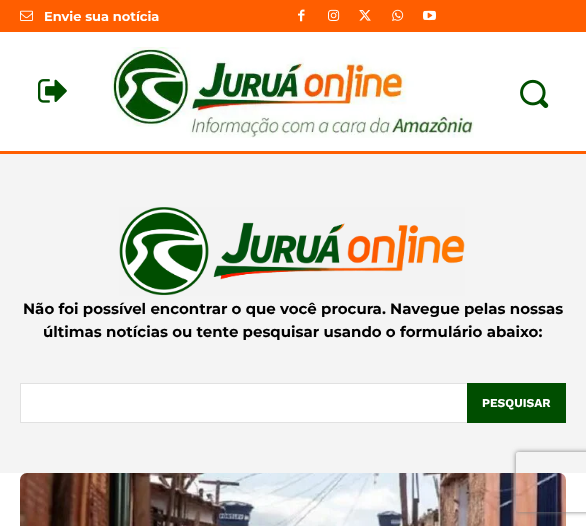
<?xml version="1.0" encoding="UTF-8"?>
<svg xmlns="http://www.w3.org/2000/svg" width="586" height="526">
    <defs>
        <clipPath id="clip1"><path d="M 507 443 H 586 V 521 H 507 Z M 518 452 H 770 C 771 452 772 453 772 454 V 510 C 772 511 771 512 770 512 H 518 C 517 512 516 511 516 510 V 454 C 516 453 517 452 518 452 Z" clip-rule="evenodd"/></clipPath>
        <filter id="blur1" x="-50%" y="-200%" width="200%" height="500%"><feGaussianBlur stdDeviation="2.5"/></filter>
    </defs>
    <rect width="100%" height="100%" fill="#FFFFFF"/>
    <rect x="0" y="0" width="586" height="32" fill="#FF5E00"/>
    <image x="20" y="10" width="13" height="11" href="img_01.png"/>
    <text x="44" y="21" font-family="Montserrat" font-size="13" font-weight="700" fill="#FFFFFF">Envie sua notícia</text>
    <image x="298" y="9" width="7" height="13" href="img_02.png"/>
    <image x="328" y="9" width="12" height="12" href="img_03.png"/>
    <image x="359" y="10" width="12" height="11" href="img_04.png"/>
    <image x="392" y="9" width="12" height="12" href="img_05.png"/>
    <image x="423" y="10" width="13" height="11" href="img_06.png"/>
    <image x="38" y="79" width="29" height="24" href="img_07.png"/>
    <image x="111" y="47" width="363" height="91" href="img_08.png"/>
    <image x="520" y="79" width="29" height="29" href="img_09.png"/>
    <rect x="0" y="151" width="586" height="3" fill="#FF5E00"/>
    <rect x="0" y="154" width="586" height="319" fill="#F4F4F4"/>
    <image x="119" y="207" width="346" height="89" href="img_10.png"/>
    <text x="23" y="314" font-family="Montserrat" font-size="15" font-weight="700" fill="#000000">Não foi possível encontrar o que você procura. Navegue pelas nossas</text>
    <text x="43" y="337" font-family="Montserrat" font-size="15" font-weight="700" fill="#000000">últimas notícias ou tente pesquisar usando o formulário abaixo:</text>
    <rect x="21" y="384" width="446" height="38" fill="#FFFFFF"/>
    <rect x="20.5" y="383.5" width="545" height="39" fill="none" stroke="#E1E1E1"/>
    <rect x="467" y="383" width="99" height="40" fill="#004E00"/>
    <text x="482" y="407" font-family="Work Sans" font-size="12" font-weight="700" fill="#FFFFFF">PESQUISAR</text>
    <image x="20" y="473" width="546" height="53" href="img_11.png"/>
    <g clip-path="url(#clip1)">
        <rect x="516" y="452" width="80" height="60" rx="2" fill="#808080" filter="url(#blur1)"/>
    </g>
</svg>
